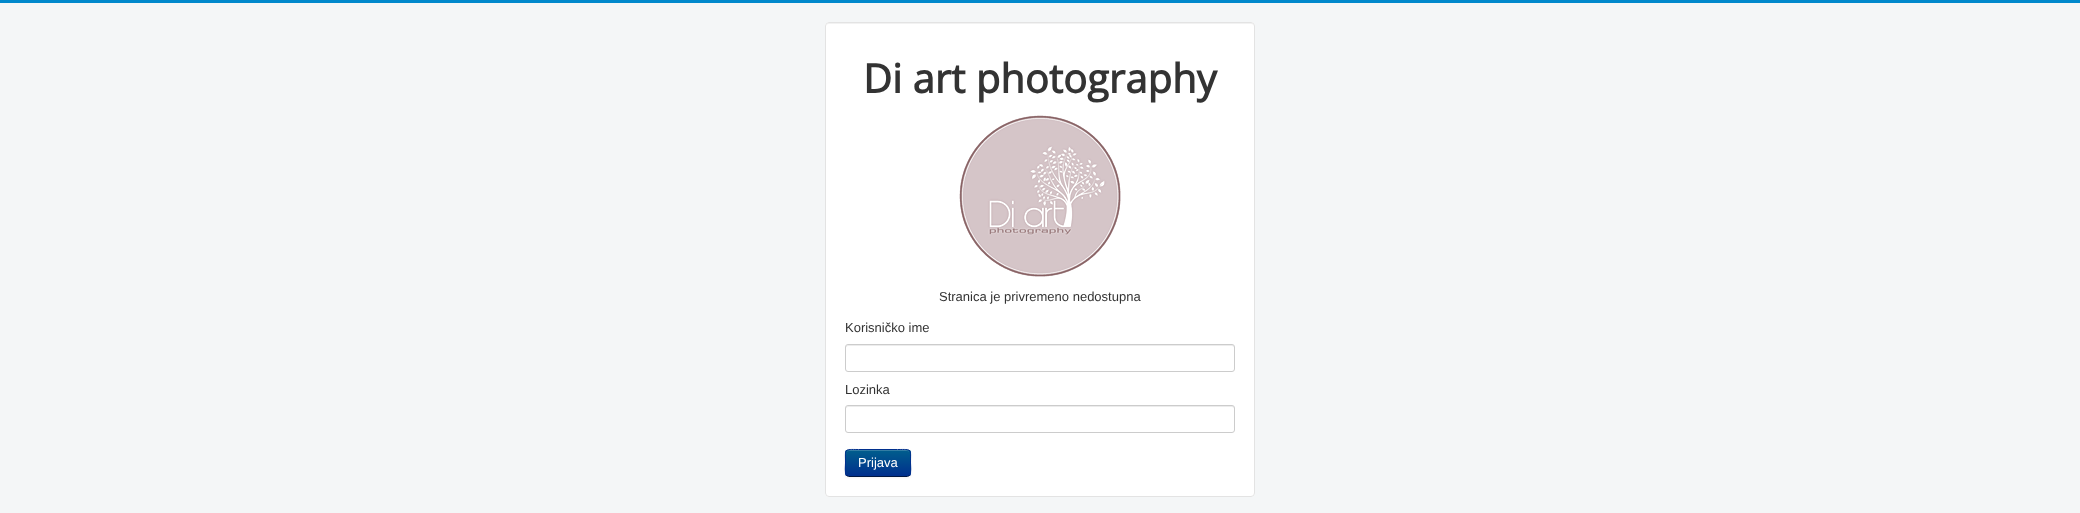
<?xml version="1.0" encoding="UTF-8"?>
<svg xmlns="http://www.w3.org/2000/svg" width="2080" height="513">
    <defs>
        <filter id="blur1" x="-50%" y="-200%" width="200%" height="500%"><feGaussianBlur stdDeviation="1"/></filter>
        <clipPath id="clip1"><rect x="845" y="449" width="66" height="28" rx="4"/></clipPath>
        <linearGradient id="g1" gradientUnits="userSpaceOnUse" x1="878" y1="450" x2="878" y2="476"><stop offset="0" stop-color="#005E8D"/><stop offset="1" stop-color="#002F8D"/></linearGradient>
    </defs>
    <rect width="100%" height="100%" fill="#F4F6F7"/>
    <rect x="0" y="0" width="2080" height="3" fill="#0088CC"/>
    <rect x="825" y="22" width="430" height="475" rx="4" fill="#FFFFFF"/>
    <path d="M 829 24 H 1251 C 1253 24 1254 25 1254 27 C 1254 25 1253 23 1251 23 H 829 C 827 23 826 25 826 27 C 826 25 827 24 829 24 Z" fill="#F2F2F2"/>
    <rect x="825.5" y="22.5" width="429" height="474" rx="3.5" fill="none" stroke="#E3E3E3"/>
    <text x="863" y="93" font-family="Open Sans" font-size="40" font-weight="700" fill="#333333">Di art photography</text>
    <image x="959" y="115" width="162" height="162" href="img_01.png"/>
    <text x="939" y="301" font-family="Liberation Sans" font-size="13" fill="#333333">Stranica je privremeno nedostupna</text>
    <text x="845" y="332" font-family="Liberation Sans" font-size="13" fill="#333333">Korisničko ime</text>
    <path d="M 848 346 H 1232 C 1233 346 1234 347 1234 348 C 1234 347 1234 345 1232 345 H 848 L 846 346 V 348 C 846 347 847 346 848 346 Z" fill="#ECECEC"/>
    <rect x="845.5" y="344.5" width="389" height="27" rx="2.5" fill="none" stroke="#CCCCCC"/>
    <text x="845" y="394" font-family="Liberation Sans" font-size="13" fill="#333333">Lozinka</text>
    <path d="M 848 407 H 1232 C 1233 407 1234 408 1234 409 C 1234 408 1234 406 1232 406 H 848 L 846 407 V 409 C 846 408 847 407 848 407 Z" fill="#ECECEC"/>
    <rect x="845.5" y="405.5" width="389" height="27" rx="2.5" fill="none" stroke="#CCCCCC"/>
    <rect x="845" y="450" width="66" height="28" rx="4" fill="#000000" fill-opacity="0.05" filter="url(#blur1)"/>
    <g clip-path="url(#clip1)">
        <rect x="845" y="450" width="66" height="26" fill="url(#g1)"/>
    </g>
    <path d="M 849 451 H 907 C 909 451 910 452 910 454 C 910 448 902 450 897 450 H 859 C 854 450 846 448 846 454 C 846 452 847 451 849 451 Z" fill="#337DA4"/>
    <path d="M 909.5 475.5 L 907.5 476.5 H 848.5 L 846.5 475.5" fill="none" stroke="#001641"/>
    <path d="M 846.5 475.5 C 844.5 473 845.5 465.5 845.5 463 C 845.5 448 843.5 449.5 858.5 449.5 H 897.5 C 912.5 449.5 910.5 448 910.5 463 C 910.5 465.5 911.5 473 909.5 475.5" fill="none" stroke="#002F8D"/>
    <text x="858" y="467" font-family="Liberation Sans" font-size="13" fill="#FFFFFF">Prijava</text>
</svg>
